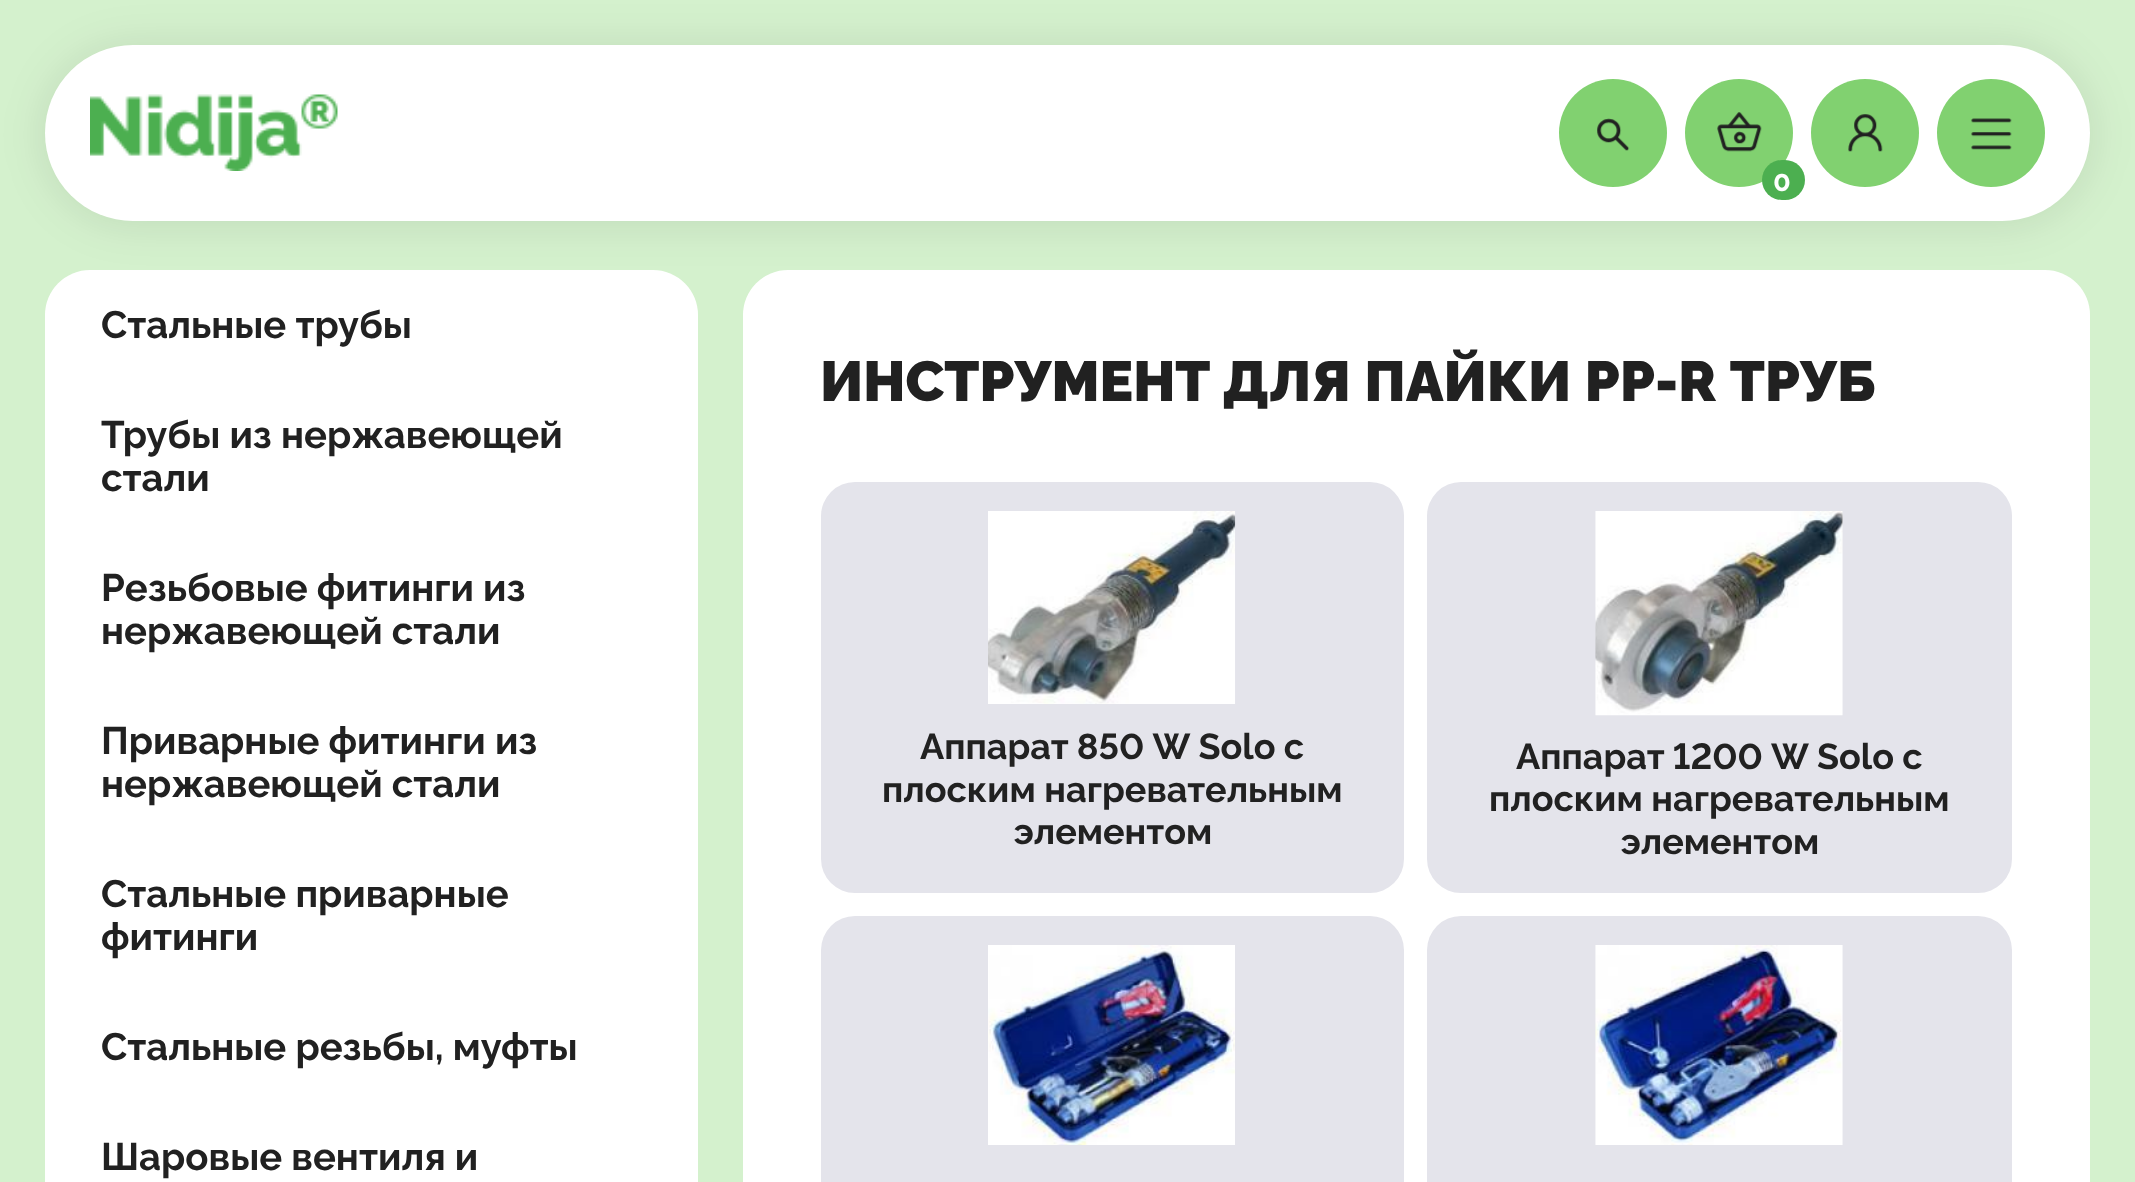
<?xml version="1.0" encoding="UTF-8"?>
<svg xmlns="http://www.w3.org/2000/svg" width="2135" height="1182">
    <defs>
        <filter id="blur1" x="-50%" y="-200%" width="200%" height="500%"><feGaussianBlur stdDeviation="22.5"/></filter>
    </defs>
    <rect width="100%" height="100%" fill="#D4F1CD"/>
    <rect x="45" y="270" width="653" height="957" rx="45" fill="#FFFFFF"/>
    <rect x="743" y="270" width="1347" height="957" rx="45" fill="#FFFFFF"/>
    <rect x="45" y="47" width="2045" height="176" rx="88" fill="#000000" fill-opacity="0.1" filter="url(#blur1)"/>
    <rect x="45" y="45" width="2045" height="176" rx="88" fill="#FFFFFF"/>
    <image x="90" y="94" width="248" height="77" href="img_01.png"/>
    <circle cx="1613" cy="133" r="54" fill="#81D170"/>
    <image x="1597" y="118" width="33" height="33" href="img_02.png"/>
    <circle cx="1739" cy="133" r="54" fill="#81D170"/>
    <image x="1717" y="112" width="45" height="40" href="img_03.png"/>
    <rect x="1762" y="160" width="43" height="40" rx="20" fill="#4CAF50"/>
    <text x="1773" y="191" font-family="Raleway" font-size="29" font-weight="700" fill="#FFFFFF">0</text>
    <circle cx="1865" cy="133" r="54" fill="#81D170"/>
    <image x="1848" y="114" width="35" height="38" href="img_04.png"/>
    <circle cx="1991" cy="133" r="54" fill="#81D170"/>
    <image x="1971" y="118" width="41" height="32" href="img_05.png"/>
    <text x="101" y="338" font-family="Raleway" font-size="38.25" font-weight="700" fill="#212121">Стальные трубы</text>
    <text font-family="Raleway" font-size="38.25" font-weight="700" fill="#212121">
        <tspan x="101" y="448">Трубы из нержавеющей</tspan>
        <tspan x="101" y="491">стали</tspan>
    </text>
    <text font-family="Raleway" font-size="38.25" font-weight="700" fill="#212121">
        <tspan x="101" y="601">Резьбовые фитинги из</tspan>
        <tspan x="101" y="644">нержавеющей стали</tspan>
    </text>
    <text font-family="Raleway" font-size="38.25" font-weight="700" fill="#212121">
        <tspan x="101" y="754">Приварные фитинги из</tspan>
        <tspan x="101" y="797">нержавеющей стали</tspan>
    </text>
    <text font-family="Raleway" font-size="38.25" font-weight="700" fill="#212121">
        <tspan x="101" y="907">Стальные приварные</tspan>
        <tspan x="101" y="950">фитинги</tspan>
    </text>
    <text x="101" y="1060" font-family="Raleway" font-size="38.25" font-weight="700" fill="#212121">Стальные резьбы, муфты</text>
    <text x="101" y="1170" font-family="Raleway" font-size="38.25" font-weight="700" fill="#212121">Шаровые вентиля и</text>
    <text x="820" y="401" word-spacing="1" font-family="Raleway" font-size="56.25" font-weight="900" fill="#212121">ИНСТРУМЕНТ ДЛЯ ПАЙКИ PP-R ТРУБ</text>
    <rect x="821" y="482" width="583" height="411" rx="34" fill="#E4E4EB"/>
    <image x="988" y="511" width="248" height="193" href="img_06.png"/>
    <text x="920" y="759" word-spacing="-0.5" font-family="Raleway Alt" font-size="36" font-weight="700" fill="#212121">Аппарат 850 W Solo с</text>
    <text x="882" y="802" font-family="Raleway" font-size="36" font-weight="700" fill="#212121">плоским нагревательным</text>
    <text x="1013" y="844" font-family="Raleway" font-size="36" font-weight="700" fill="#212121">элементом</text>
    <rect x="1427" y="482" width="585" height="411" rx="34" fill="#E4E4EB"/>
    <image x="1595" y="511" width="248" height="205" href="img_07.png"/>
    <text x="1516" y="769" word-spacing="-0.5" font-family="Raleway Alt" font-size="36" font-weight="700" fill="#212121">Аппарат 1200 W Solo с</text>
    <text x="1489" y="811" font-family="Raleway" font-size="36" font-weight="700" fill="#212121">плоским нагревательным</text>
    <text x="1620" y="854" font-family="Raleway" font-size="36" font-weight="700" fill="#212121">элементом</text>
    <rect x="821" y="916" width="583" height="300" rx="34" fill="#E4E4EB"/>
    <image x="988" y="945" width="247" height="200" href="img_08.png"/>
    <rect x="1427" y="916" width="585" height="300" rx="34" fill="#E4E4EB"/>
    <image x="1595" y="945" width="248" height="200" href="img_09.png"/>
</svg>
